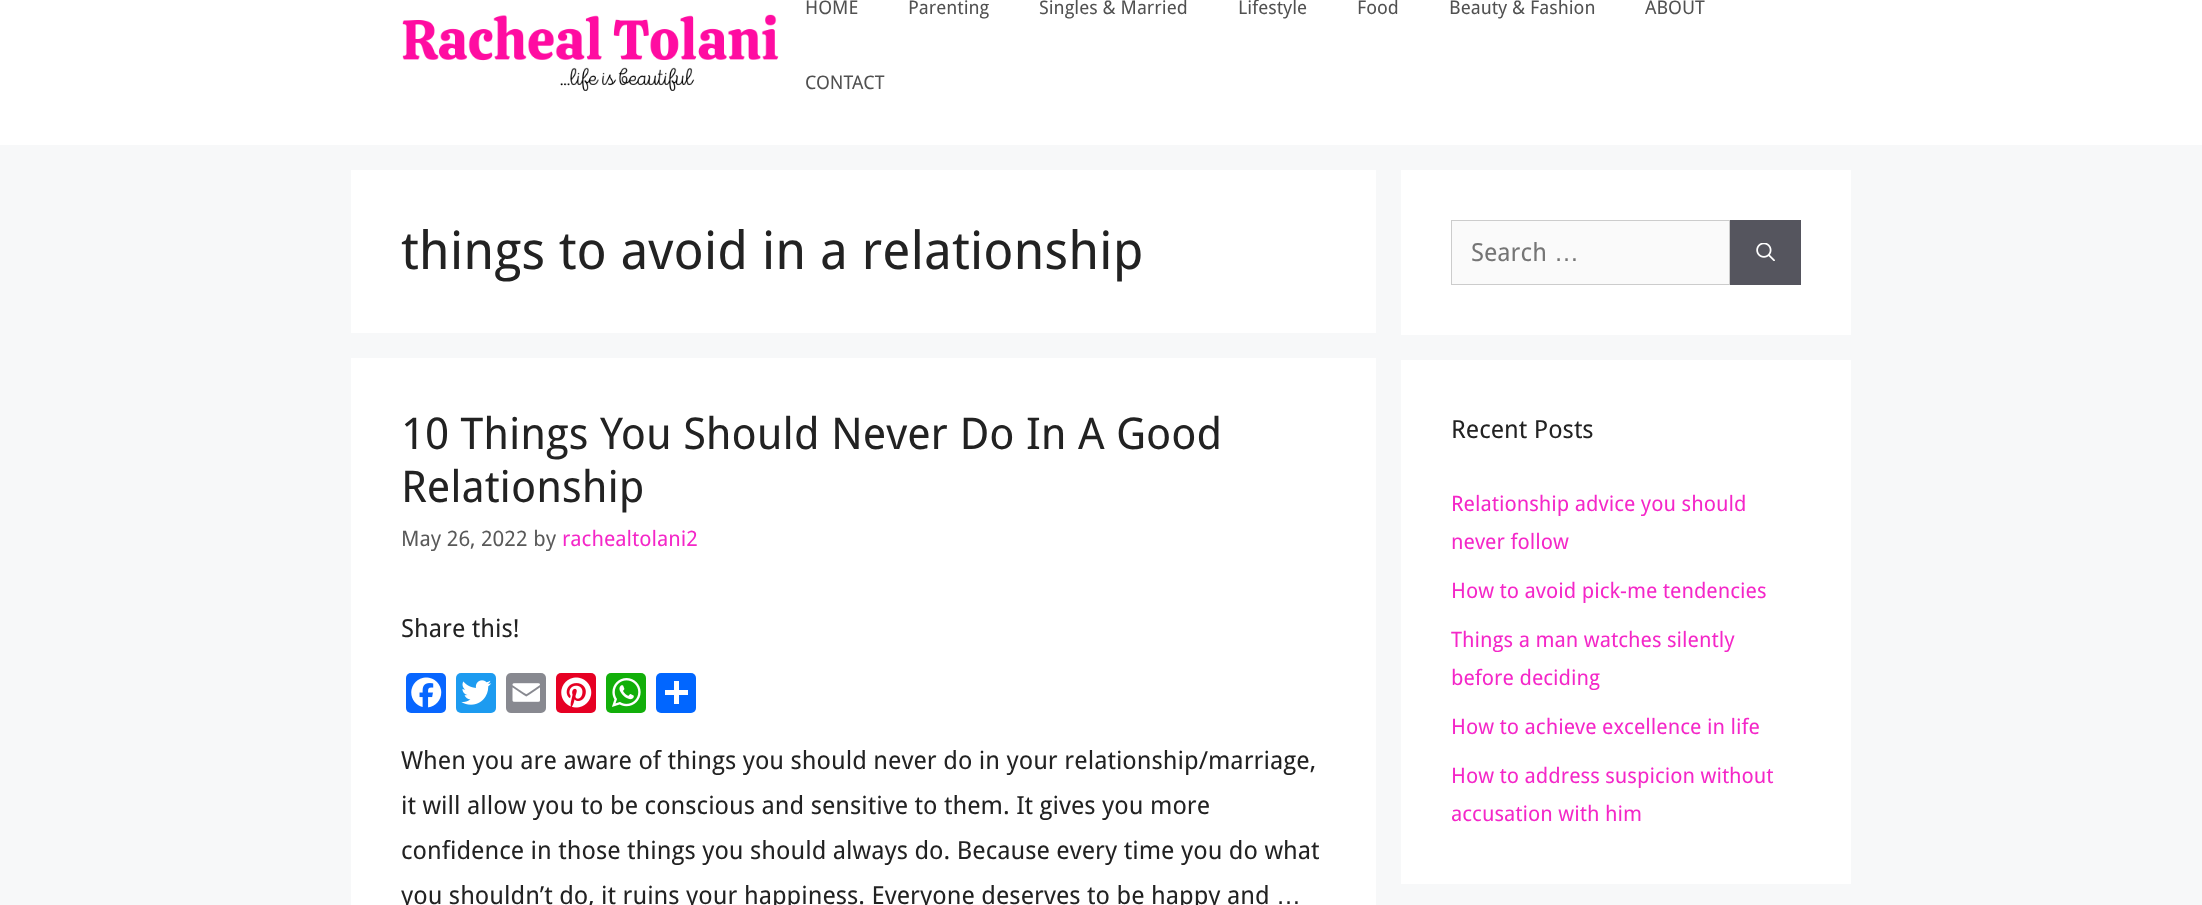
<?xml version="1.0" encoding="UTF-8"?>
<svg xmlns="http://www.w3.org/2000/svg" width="2202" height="905">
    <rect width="100%" height="100%" fill="#F7F8F9"/>
    <rect x="0" y="0" width="2202" height="145" fill="#FFFFFF"/>
    <image x="402" y="14" width="377" height="77" href="img_01.png"/>
    <text x="805" y="14" font-family="Droid Sans" font-size="18.75" fill="#515151">HOME</text>
    <text x="908" y="14" font-family="Droid Sans" font-size="18.75" fill="#515151">Parenting</text>
    <text x="1039" y="14" font-family="Droid Sans" font-size="18.75" fill="#515151">Singles &amp; Married</text>
    <text x="1238" y="14" font-family="Droid Sans" font-size="18.75" fill="#515151">Lifestyle</text>
    <text x="1357" y="14" font-family="Droid Sans" font-size="18.75" fill="#515151">Food</text>
    <text x="1449" y="14" font-family="Droid Sans" font-size="18.75" fill="#515151">Beauty &amp; Fashion</text>
    <text x="1645" y="14" font-family="Droid Sans" font-size="18.75" fill="#515151">ABOUT</text>
    <text x="805" y="89" font-family="Droid Sans" font-size="18.75" fill="#515151">CONTACT</text>
    <rect x="351" y="170" width="1025" height="163" fill="#FFFFFF"/>
    <text x="401" y="269" font-family="Droid Sans" font-size="52.5" fill="#222222">things to avoid in a relationship</text>
    <rect x="351" y="358" width="1025" height="547" fill="#FFFFFF"/>
    <text font-family="Droid Sans" font-size="43.75" fill="#222222">
        <tspan x="401" y="449">10 Things You Should Never Do In A Good</tspan>
        <tspan x="401" y="502">Relationship</tspan>
    </text>
    <text x="401" y="546" font-family="Droid Sans" font-size="21.25" fill="#595959">May 26, 2022 by</text>
    <text x="562" y="546" font-family="Droid Sans" font-size="21.25" fill="#F427C8">rachealtolani2</text>
    <text x="401" y="637" font-family="Droid Sans" font-size="25" fill="#222222">Share this!</text>
    <rect x="406" y="673" width="40" height="40" rx="5" fill="#0866FF"/>
    <image x="411" y="677" width="31" height="31" href="img_02.png"/>
    <rect x="456" y="673" width="40" height="40" rx="5" fill="#1D9BF0"/>
    <image x="461" y="680" width="31" height="25" href="img_03.png"/>
    <rect x="506" y="673" width="40" height="40" rx="5" fill="#888990"/>
    <image x="512" y="683" width="28" height="19" href="img_04.png"/>
    <rect x="556" y="673" width="40" height="40" rx="5" fill="#E60023"/>
    <image x="561" y="677" width="31" height="31" href="img_05.png"/>
    <rect x="606" y="673" width="40" height="40" rx="5" fill="#12AF0A"/>
    <image x="612" y="678" width="29" height="29" href="img_06.png"/>
    <rect x="656" y="673" width="40" height="40" rx="5" fill="#0166FF"/>
    <rect x="674" y="681" width="5" height="23" fill="#FFFFFF"/>
    <rect x="665" y="690" width="23" height="5" fill="#FFFFFF"/>
    <text font-family="Droid Sans" font-size="25" fill="#222222">
        <tspan x="401" y="769">When you are aware of things you should never do in your relationship/marriage,</tspan>
        <tspan x="401" y="814">it will allow you to be conscious and sensitive to them. It gives you more</tspan>
        <tspan x="401" y="859">confidence in those things you should always do. Because every time you do what</tspan>
        <tspan x="401" y="904">you shouldn’t do, it ruins your happiness. Everyone deserves to be happy and</tspan>
    </text>
    <text x="1276" y="904" font-family="Liberation Sans" font-size="25" fill="#222222">…</text>
    <rect x="1401" y="170" width="450" height="165" fill="#FFFFFF"/>
    <rect x="1451.5" y="220.5" width="278" height="64" fill="#FAFAFA" stroke="#CCCCCC"/>
    <text x="1471" y="261" font-family="Droid Sans" font-size="25" fill="#757575">Search</text>
    <text x="1554" y="261" font-family="Liberation Sans" font-size="25" fill="#757575">…</text>
    <rect x="1730" y="220" width="71" height="65" fill="#55555E"/>
    <image x="1756" y="243" width="19" height="18" href="img_07.png"/>
    <rect x="1401" y="360" width="450" height="524" fill="#FFFFFF"/>
    <text x="1451" y="438" font-family="Droid Sans" font-size="25" fill="#222222">Recent Posts</text>
    <text font-family="Droid Sans" font-size="21.25" fill="#F427C8">
        <tspan x="1451" y="511">Relationship advice you should</tspan>
        <tspan x="1451" y="549">never follow</tspan>
    </text>
    <text x="1451" y="598" font-family="Droid Sans" font-size="21.25" fill="#F427C8">How to avoid pick-me tendencies</text>
    <text font-family="Droid Sans" font-size="21.25" fill="#F427C8">
        <tspan x="1451" y="647">Things a man watches silently</tspan>
        <tspan x="1451" y="685">before deciding</tspan>
    </text>
    <text x="1451" y="734" font-family="Droid Sans" font-size="21.25" fill="#F427C8">How to achieve excellence in life</text>
    <text font-family="Droid Sans" font-size="21.25" fill="#F427C8">
        <tspan x="1451" y="783">How to address suspicion without</tspan>
        <tspan x="1451" y="821">accusation with him</tspan>
    </text>
</svg>
